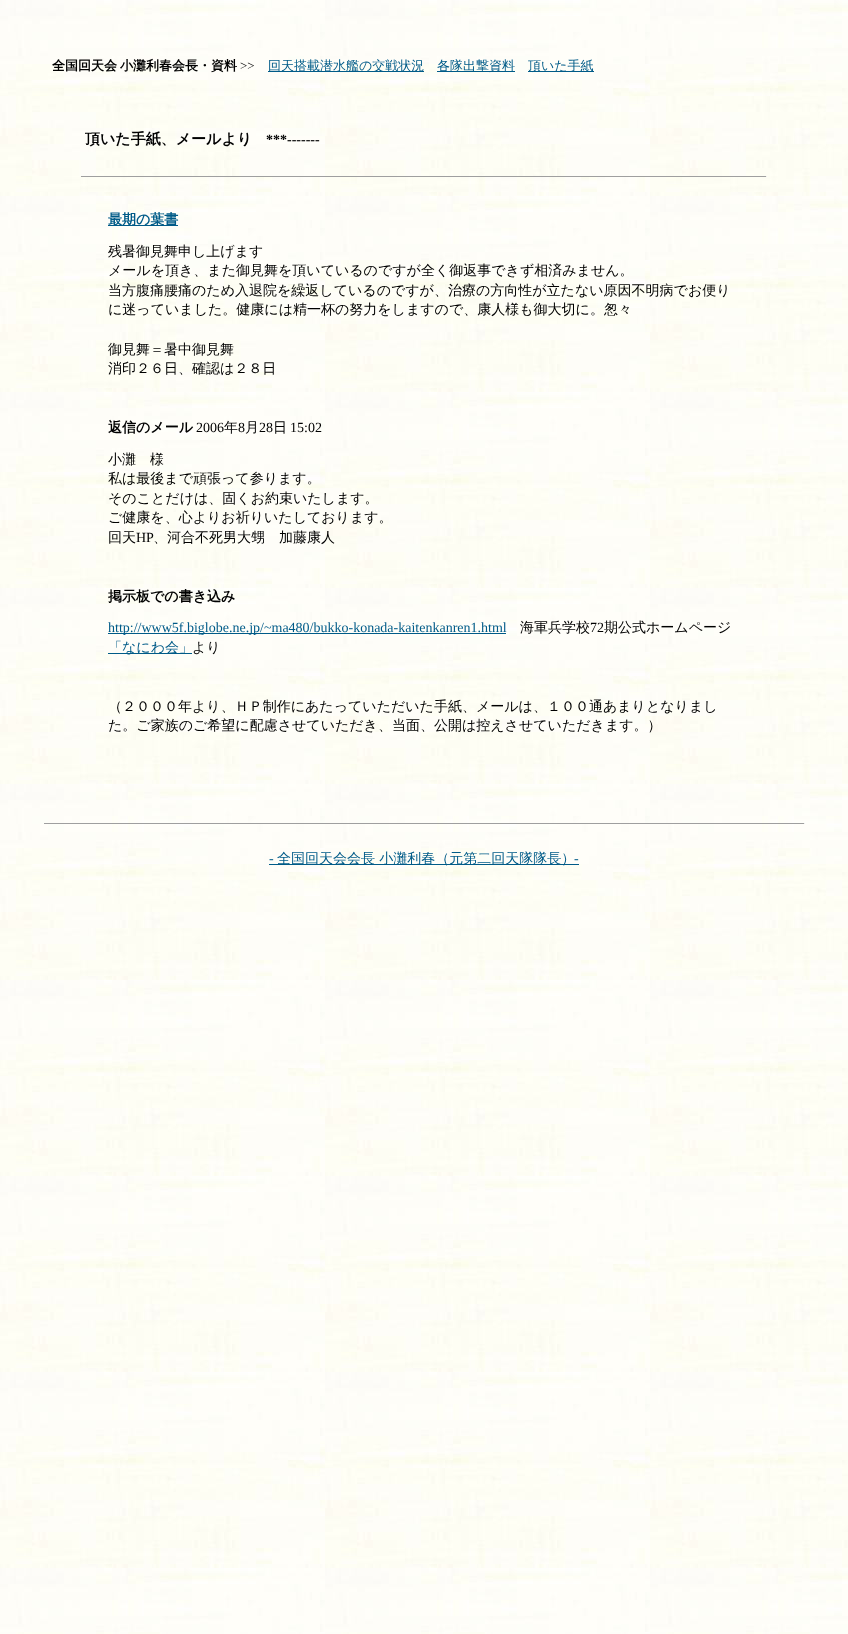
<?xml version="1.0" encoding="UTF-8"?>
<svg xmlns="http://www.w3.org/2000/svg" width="848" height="1634">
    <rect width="100%" height="100%" fill="#FFFFFF"/>
    <image x="0" y="0" width="848" height="1634" href="img_01.png"/>
    <text x="52" y="70" word-spacing="-1" font-family="WenQuanYi Zen Hei" font-size="13" font-weight="700" fill="#000000">全国回天会 小灘利春会長・資料</text>
    <text x="240" y="70" font-family="Liberation Serif" font-size="13" fill="#000000">&gt;&gt;</text>
    <rect x="268" y="71" width="156" height="1" fill="#005B88"/>
    <text x="268" y="70" font-family="WenQuanYi Zen Hei" font-size="13" font-weight="500" fill="#005B88">回天搭載潜水艦の交戦状況</text>
    <rect x="437" y="71" width="78" height="1" fill="#005B88"/>
    <text x="437" y="70" font-family="WenQuanYi Zen Hei" font-size="13" font-weight="500" fill="#005B88">各隊出撃資料</text>
    <rect x="528" y="71" width="66" height="1" fill="#005B88"/>
    <text x="528" y="70" font-family="WenQuanYi Zen Hei" font-size="13" font-weight="500" fill="#005B88">頂いた手紙</text>
    <text x="85" y="144" font-family="WenQuanYi Zen Hei" font-size="15" font-weight="700" fill="#000000">頂いた手紙、メールより</text>
    <text x="266" y="144" font-family="Liberation Serif" font-size="14" font-weight="700" fill="#000000">***-------</text>
    <rect x="81" y="176" width="686" height="1" fill="#9F9F9F"/>
    <rect x="766" y="176" width="1" height="1" fill="#EEEEEE"/>
    <rect x="108" y="225" width="70" height="1" fill="#005B88"/>
    <text x="108" y="224" font-family="WenQuanYi Zen Hei" font-size="14" font-weight="700" fill="#005B88">最期の葉書</text>
    <text font-family="WenQuanYi Zen Hei" font-size="14" font-weight="500" fill="#000000">
        <tspan x="108" y="256">残暑御見舞申し上げます</tspan>
        <tspan x="108" y="275">メールを頂き、また御見舞を頂いているのですが全く御返事できず相済みません。</tspan>
        <tspan x="108" y="295">当方腹痛腰痛のため入退院を繰返しているのですが、治療の方向性が立たない原因不明病でお便り</tspan>
        <tspan x="108" y="314">に迷っていました。健康には精一杯の努力をしますので、康人様も御大切に。怱々</tspan>
    </text>
    <text font-family="WenQuanYi Zen Hei" font-size="14" font-weight="500" fill="#000000">
        <tspan x="108" y="354">御見舞＝暑中御見舞</tspan>
        <tspan x="108" y="373">消印２６日、確認は２８日</tspan>
    </text>
    <text x="108" y="432" font-family="WenQuanYi Zen Hei" font-size="14" font-weight="700" fill="#000000">返信のメール</text>
    <text x="196" y="432" font-family="Liberation Serif" font-size="14" fill="#000000">2006</text>
    <text x="224" y="432" font-family="WenQuanYi Zen Hei" font-size="14" font-weight="500" fill="#000000">年</text>
    <text x="238" y="432" font-family="Liberation Serif" font-size="14" fill="#000000">8</text>
    <text x="245" y="432" font-family="WenQuanYi Zen Hei" font-size="14" font-weight="500" fill="#000000">月</text>
    <text x="259" y="432" font-family="Liberation Serif" font-size="14" fill="#000000">28</text>
    <text x="273" y="432" font-family="WenQuanYi Zen Hei" font-size="14" font-weight="500" fill="#000000">日</text>
    <text x="290" y="432" font-family="Liberation Serif" font-size="14" fill="#000000">15:02</text>
    <text font-family="WenQuanYi Zen Hei" font-size="14" font-weight="500" fill="#000000">
        <tspan x="108" y="464">小灘　様</tspan>
        <tspan x="108" y="483">私は最後まで頑張って参ります。</tspan>
        <tspan x="108" y="503">そのことだけは、固くお約束いたします。</tspan>
        <tspan x="108" y="522">ご健康を、心よりお祈りいたしております。</tspan>
        <tspan x="108" y="542">回天</tspan>
    </text>
    <text x="136" y="542" font-family="Liberation Serif" font-size="14" fill="#000000">HP</text>
    <text x="153" y="542" font-family="WenQuanYi Zen Hei" font-size="14" font-weight="500" fill="#000000">、河合不死男大甥　加藤康人</text>
    <text x="108" y="601" font-family="WenQuanYi Zen Hei" font-size="14" font-weight="700" fill="#000000">掲示板での書き込み</text>
    <rect x="108" y="633" width="398" height="1" fill="#005B88"/>
    <text x="108" y="632" font-family="Liberation Serif" font-size="14" fill="#005B88">http://www5f.biglobe.ne.jp/~ma480/bukko-konada-kaitenkanren1.html</text>
    <text x="520" y="632" font-family="WenQuanYi Zen Hei" font-size="14" font-weight="500" fill="#000000">海軍兵学校</text>
    <text x="590" y="632" font-family="Liberation Serif" font-size="14" fill="#000000">72</text>
    <text x="604" y="632" font-family="WenQuanYi Zen Hei" font-size="14" font-weight="500" fill="#000000">期公式ホームページ</text>
    <rect x="108" y="653" width="84" height="1" fill="#005B88"/>
    <text x="108" y="652" font-family="WenQuanYi Zen Hei" font-size="14" font-weight="500" fill="#005B88">「なにわ会」</text>
    <text x="192" y="652" font-family="WenQuanYi Zen Hei" font-size="14" font-weight="500" fill="#000000">より</text>
    <text font-family="WenQuanYi Zen Hei" font-size="14" font-weight="500" fill="#000000">
        <tspan x="108" y="711">（２０００年より、ＨＰ制作にあたっていただいた手紙、メールは、１００通あまりとなりまし</tspan>
        <tspan x="108" y="730">た。ご家族のご希望に配慮させていただき、当面、公開は控えさせていただきます。）</tspan>
    </text>
    <rect x="44" y="823" width="761" height="1" fill="#9F9F9F"/>
    <rect x="804" y="823" width="1" height="1" fill="#EEEEEE"/>
    <text x="269" y="863" font-family="Liberation Serif" font-size="14" fill="#005B88">-</text>
    <rect x="269" y="864" width="310" height="1" fill="#005B88"/>
    <text x="277" y="863" font-family="WenQuanYi Zen Hei" font-size="14" font-weight="500" fill="#005B88">全国回天会会長 小灘利春（元第二回天隊隊長）</text>
    <text x="574" y="863" font-family="Liberation Serif" font-size="14" fill="#005B88">-</text>
</svg>
